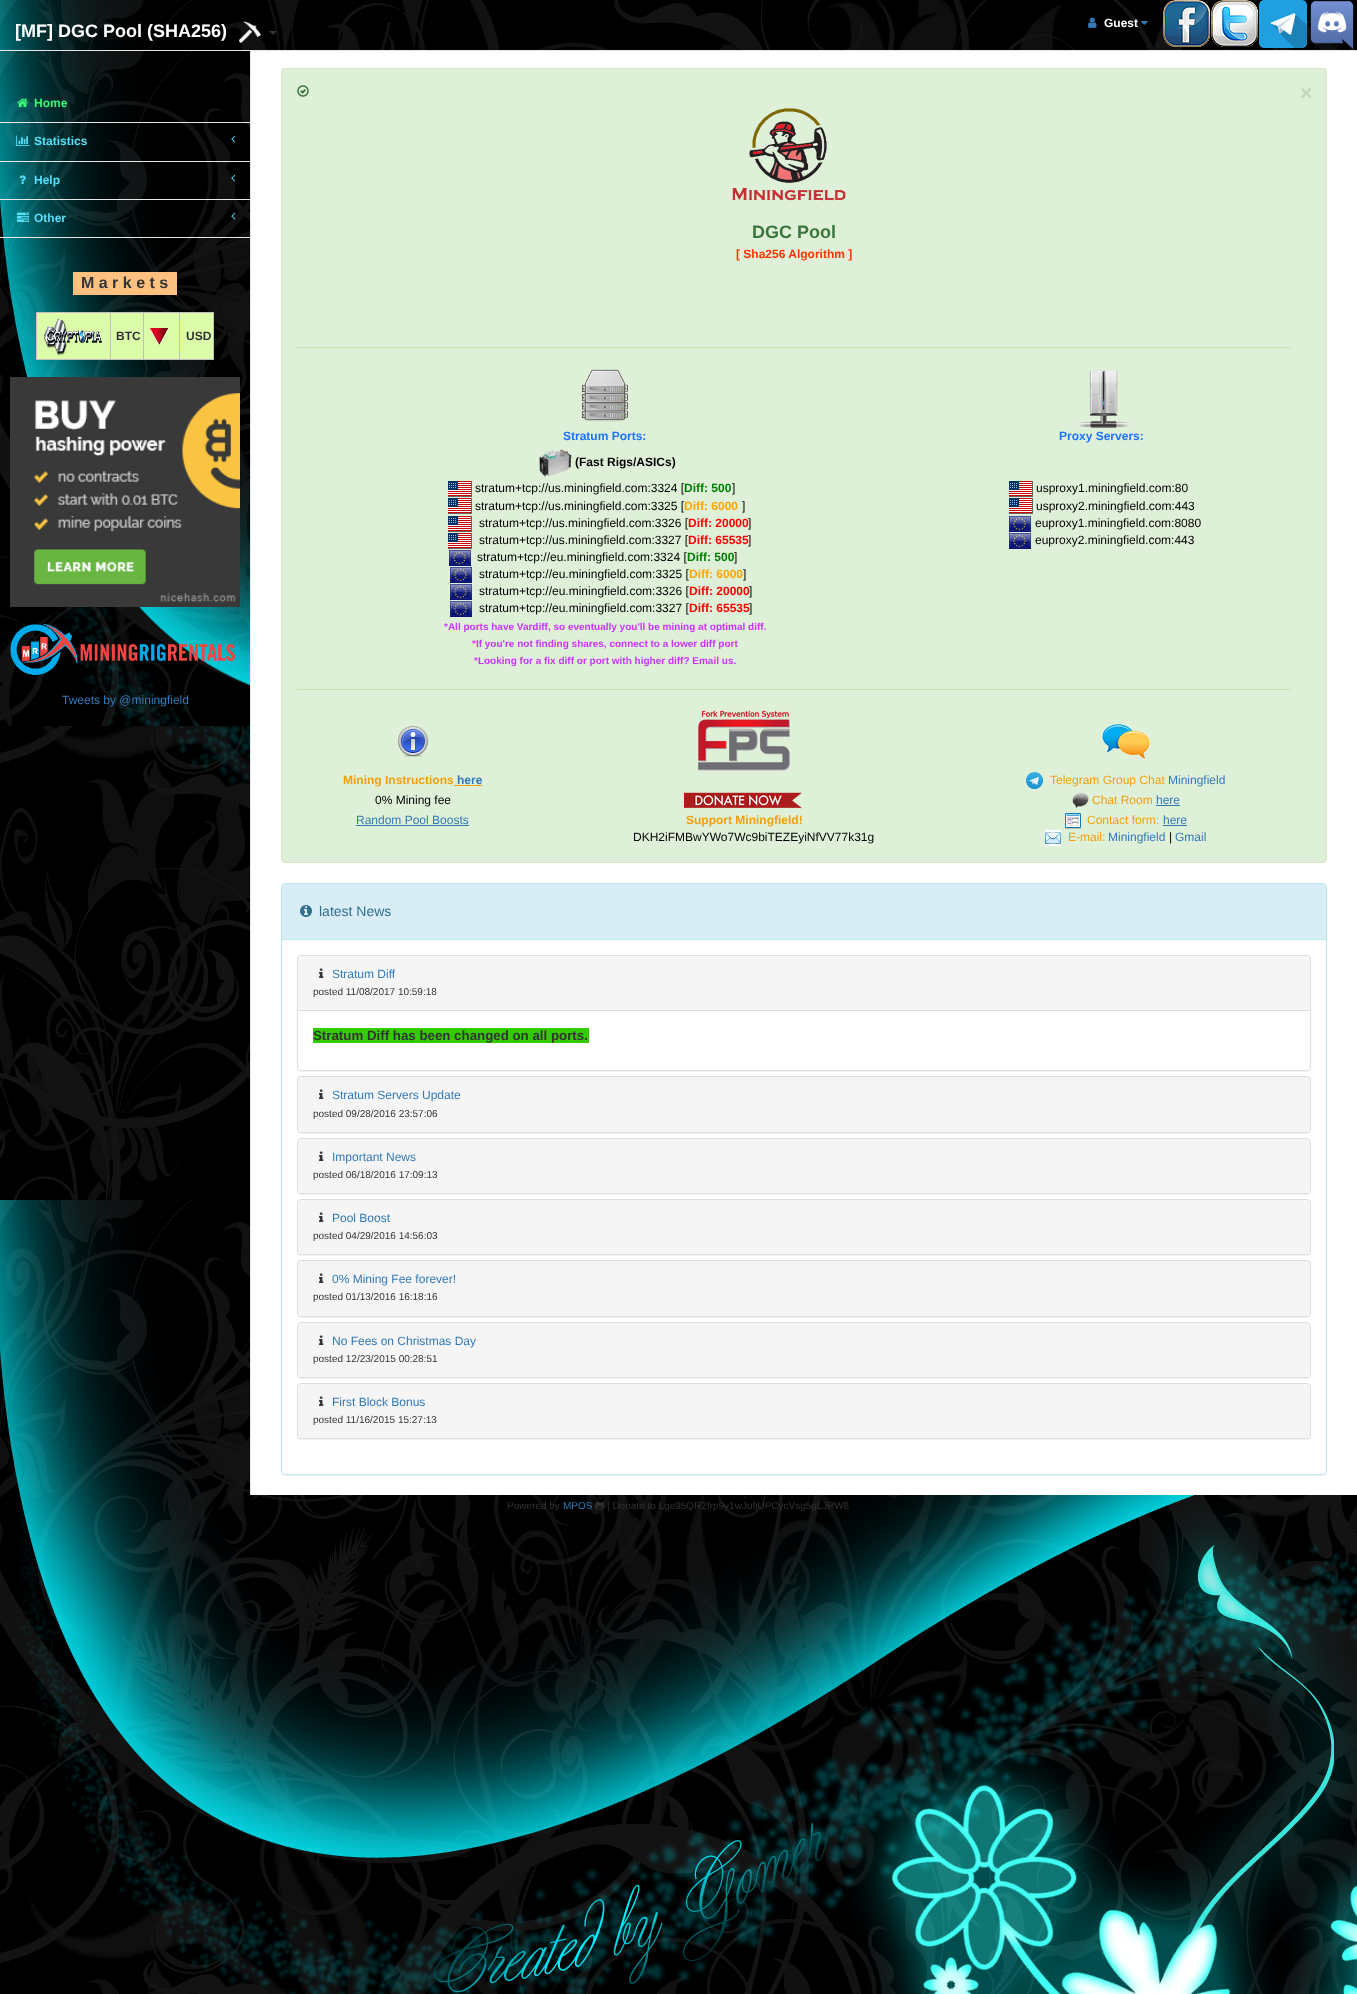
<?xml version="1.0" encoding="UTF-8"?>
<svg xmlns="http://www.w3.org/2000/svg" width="1357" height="1994">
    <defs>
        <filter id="blur1" x="-50%" y="-200%" width="200%" height="500%"><feGaussianBlur stdDeviation="0.5"/></filter>
    </defs>
    <rect width="100%" height="100%" fill="#FFFFFF"/>
    <image x="0" y="726" width="1357" height="1268" href="img_01.png"/>
    <image x="0" y="0" width="1357" height="50" href="img_02.png"/>
    <rect x="0" y="50" width="1357" height="1" fill="#E7E7E7"/>
    <text x="15" y="37" font-family="Liberation Sans" font-size="18" font-weight="700" fill="#FFFFFF">[MF] DGC Pool (SHA256)</text>
    <image x="239" y="21" width="22" height="22" href="img_03.png"/>
    <path d="M 269 31 H 277 L 273 35 Z" fill="#333333"/>
    <image x="1088" y="17" width="9" height="11" href="img_04.png"/>
    <text x="1104" y="27" font-family="Liberation Sans" font-size="12" font-weight="700" fill="#FFFFFF">Guest</text>
    <image x="1141" y="21" width="7" height="4" href="img_05.png"/>
    <image x="1163" y="0" width="47" height="47" href="img_06.png"/>
    <image x="1211" y="0" width="47" height="47" href="img_07.png"/>
    <image x="1259" y="0" width="48" height="48" href="img_08.png"/>
    <image x="1310" y="0" width="44" height="49" href="img_09.png"/>
    <image x="0" y="51" width="250" height="675" href="img_10.png"/>
    <rect x="0" y="122" width="250" height="1" fill="#E7E7E7"/>
    <image x="17" y="98" width="11" height="9" href="img_11.png"/>
    <text x="34" y="107" font-family="Liberation Sans" font-size="12" font-weight="700" fill="#3CF77A">Home</text>
    <rect x="0" y="161" width="250" height="1" fill="#E7E7E7"/>
    <image x="16" y="135" width="14" height="11" href="img_12.png"/>
    <text x="34" y="145" font-family="Liberation Sans" font-size="12" font-weight="700" fill="#57E0F8">Statistics</text>
    <image x="231" y="135" width="5" height="8" href="img_13.png"/>
    <rect x="0" y="199" width="250" height="1" fill="#E7E7E7"/>
    <image x="19" y="175" width="7" height="9" href="img_14.png"/>
    <text x="34" y="184" font-family="Liberation Sans" font-size="12" font-weight="700" fill="#57E0F8">Help</text>
    <image x="231" y="174" width="5" height="8" href="img_15.png"/>
    <rect x="0" y="237" width="250" height="1" fill="#E7E7E7"/>
    <image x="17" y="212" width="12" height="10" href="img_16.png"/>
    <text x="34" y="222" font-family="Liberation Sans" font-size="12" font-weight="700" fill="#57E0F8">Other</text>
    <image x="231" y="212" width="5" height="8" href="img_17.png"/>
    <rect x="73" y="272" width="104" height="23" fill="#FFC080"/>
    <text x="81" y="288" font-family="Liberation Sans" font-size="16" font-weight="700" fill="#333333">M a r k e t s</text>
    <rect x="36" y="312" width="178" height="1" fill="#C0C0C0"/>
    <rect x="213" y="312" width="1" height="48" fill="#C0C0C0"/>
    <rect x="36" y="359" width="178" height="1" fill="#C0C0C0"/>
    <rect x="36" y="312" width="1" height="48" fill="#C0C0C0"/>
    <rect x="37" y="313" width="73" height="46" fill="#DBFCA9"/>
    <image x="43" y="319" width="59" height="37" href="img_18.png"/>
    <rect x="111" y="313" width="32" height="46" fill="#DBFCA9"/>
    <rect x="110" y="312" width="1" height="48" fill="#C0C0C0"/>
    <text x="116" y="340" font-family="Liberation Sans" font-size="12" font-weight="700" fill="#333333">BTC</text>
    <rect x="144" y="313" width="35" height="46" fill="#DBFCA9"/>
    <rect x="143" y="312" width="1" height="48" fill="#C0C0C0"/>
    <image x="150" y="328" width="19" height="17" href="img_19.png"/>
    <rect x="180" y="313" width="33" height="46" fill="#DBFCA9"/>
    <rect x="179" y="312" width="1" height="48" fill="#C0C0C0"/>
    <text x="186" y="340" font-family="Liberation Sans" font-size="12" font-weight="700" fill="#333333">USD</text>
    <image x="10" y="377" width="230" height="230" href="img_20.png"/>
    <image x="10" y="624" width="230" height="51" href="img_21.png"/>
    <text x="62" y="704" font-family="Liberation Sans" font-size="12" fill="#337AB7">Tweets by @miningfield</text>
    <rect x="251" y="726" width="1106" height="769" fill="#FFFFFF"/>
    <rect x="250" y="51" width="1" height="1444" fill="#E7E7E7"/>
    <rect x="281.5" y="68.5" width="1045" height="794" rx="3.5" fill="#DFF0D8" stroke="#D6E9C6"/>
    <image x="297" y="85" width="12" height="12" href="img_22.png"/>
    <text x="1300" y="100" font-family="Liberation Sans" font-size="21" font-weight="700" fill="#BED8B9">×</text>
    <image x="732" y="108" width="114" height="93" href="img_23.png"/>
    <text x="752" y="238" font-family="Liberation Sans" font-size="18" font-weight="700" fill="#3C763D">DGC Pool</text>
    <text x="736" y="258" font-family="Liberation Sans" font-size="12" font-weight="700" fill="#FF3300">[ Sha256 Algorithm ]</text>
    <rect x="297" y="347" width="994" height="1" fill="#C9E2B3"/>
    <image x="581" y="369" width="47" height="53" href="img_24.png"/>
    <image x="1079" y="370" width="50" height="58" href="img_25.png"/>
    <text x="563" y="440" font-family="Liberation Sans" font-size="12" font-weight="700" fill="#1C73FF">Stratum Ports:</text>
    <text x="1059" y="440" font-family="Liberation Sans" font-size="12" font-weight="700" fill="#1C73FF">Proxy Servers:</text>
    <image x="539" y="449" width="33" height="28" href="img_26.png"/>
    <text x="575" y="466" font-family="Liberation Sans" font-size="12" font-weight="700" fill="#000000">(Fast Rigs/ASICs)</text>
    <image x="448" y="481" width="24" height="16" href="img_27.png"/>
    <text x="475" y="492" font-family="Liberation Sans" font-size="12" fill="#000000">stratum+tcp://us.miningfield.com:3324 [</text>
    <text x="684" y="492" font-family="Liberation Sans" font-size="12" font-weight="700" fill="#008000">Diff: 500</text>
    <text x="732" y="492" font-family="Liberation Sans" font-size="12" fill="#000000">]</text>
    <image x="1009" y="481" width="24" height="16" href="img_27.png"/>
    <text x="1036" y="492" font-family="Liberation Sans" font-size="12" fill="#000000">usproxy1.miningfield.com:80</text>
    <image x="448" y="498" width="24" height="16" href="img_27.png"/>
    <text x="475" y="510" font-family="Liberation Sans" font-size="12" fill="#000000">stratum+tcp://us.miningfield.com:3325 [</text>
    <text x="684" y="510" font-family="Liberation Sans" font-size="12" font-weight="700" fill="#FFA500">Diff: 6000</text>
    <text x="742" y="510" font-family="Liberation Sans" font-size="12" fill="#000000">]</text>
    <image x="1009" y="498" width="24" height="16" href="img_27.png"/>
    <text x="1036" y="510" font-family="Liberation Sans" font-size="12" fill="#000000">usproxy2.miningfield.com:443</text>
    <image x="448" y="516" width="24" height="16" href="img_27.png"/>
    <text x="479" y="527" font-family="Liberation Sans" font-size="12" fill="#000000">stratum+tcp://us.miningfield.com:3326 [</text>
    <text x="688" y="527" font-family="Liberation Sans" font-size="12" font-weight="700" fill="#FF0000">Diff: 20000</text>
    <text x="748" y="527" font-family="Liberation Sans" font-size="12" fill="#000000">]</text>
    <image x="1009" y="516" width="22" height="16" href="img_28.png"/>
    <text x="1035" y="527" font-family="Liberation Sans" font-size="12" fill="#000000">euproxy1.miningfield.com:8080</text>
    <image x="448" y="533" width="24" height="16" href="img_27.png"/>
    <text x="479" y="544" font-family="Liberation Sans" font-size="12" fill="#000000">stratum+tcp://us.miningfield.com:3327 [</text>
    <text x="688" y="544" font-family="Liberation Sans" font-size="12" font-weight="700" fill="#FF0000">Diff: 65535</text>
    <text x="748" y="544" font-family="Liberation Sans" font-size="12" fill="#000000">]</text>
    <image x="1009" y="533" width="22" height="16" href="img_28.png"/>
    <text x="1035" y="544" font-family="Liberation Sans" font-size="12" fill="#000000">euproxy2.miningfield.com:443</text>
    <image x="449" y="550" width="22" height="16" href="img_28.png"/>
    <text x="477" y="561" font-family="Liberation Sans" font-size="12" fill="#000000">stratum+tcp://eu.miningfield.com:3324 [</text>
    <text x="687" y="561" font-family="Liberation Sans" font-size="12" font-weight="700" fill="#008000">Diff: 500</text>
    <text x="734" y="561" font-family="Liberation Sans" font-size="12" fill="#000000">]</text>
    <image x="450" y="567" width="22" height="16" href="img_28.png"/>
    <text x="479" y="578" font-family="Liberation Sans" font-size="12" fill="#000000">stratum+tcp://eu.miningfield.com:3325 [</text>
    <text x="689" y="578" font-family="Liberation Sans" font-size="12" font-weight="700" fill="#FFA500">Diff: 6000</text>
    <text x="743" y="578" font-family="Liberation Sans" font-size="12" fill="#000000">]</text>
    <image x="450" y="584" width="22" height="16" href="img_28.png"/>
    <text x="479" y="595" font-family="Liberation Sans" font-size="12" fill="#000000">stratum+tcp://eu.miningfield.com:3326 [</text>
    <text x="689" y="595" font-family="Liberation Sans" font-size="12" font-weight="700" fill="#FF0000">Diff: 20000</text>
    <text x="749" y="595" font-family="Liberation Sans" font-size="12" fill="#000000">]</text>
    <image x="450" y="601" width="22" height="16" href="img_28.png"/>
    <text x="479" y="612" font-family="Liberation Sans" font-size="12" fill="#000000">stratum+tcp://eu.miningfield.com:3327 [</text>
    <text x="689" y="612" font-family="Liberation Sans" font-size="12" font-weight="700" fill="#FF0000">Diff: 65535</text>
    <text x="749" y="612" font-family="Liberation Sans" font-size="12" fill="#000000">]</text>
    <text x="444" y="630" font-family="Liberation Sans" font-size="10" font-weight="700" fill="#CC33FF">*All ports have Vardiff, so eventually you'll be mining at optimal diff.</text>
    <text x="472" y="647" font-family="Liberation Sans" font-size="10" font-weight="700" fill="#CC33FF">*If you're not finding shares, connect to a lower diff port</text>
    <text x="474" y="664" font-family="Liberation Sans" font-size="10" font-weight="700" fill="#CC33FF">*Looking for a fix diff or port with higher diff? Email us.</text>
    <rect x="297" y="689" width="994" height="1" fill="#C9E2B3"/>
    <image x="398" y="726" width="30" height="31" href="img_29.png"/>
    <image x="698" y="710" width="92" height="61" href="img_30.png"/>
    <image x="1102" y="724" width="48" height="36" href="img_31.png"/>
    <text x="343" y="784" font-family="Liberation Sans" font-size="12" font-weight="700" fill="#F39F0D">Mining Instructions</text>
    <rect x="454" y="785" width="28" height="1" fill="#F39F0D"/>
    <text x="457" y="784" font-family="Liberation Sans" font-size="12" font-weight="700" fill="#337AB7">here</text>
    <image x="1026" y="772" width="17" height="17" href="img_32.png"/>
    <text x="1050" y="784" font-family="Liberation Sans" font-size="12" fill="#F39F0D">Telegram Group Chat</text>
    <text x="1168" y="784" font-family="Liberation Sans" font-size="12" fill="#337AB7">Miningfield</text>
    <text x="375" y="804" font-family="Liberation Sans" font-size="12" fill="#000000">0% Mining fee</text>
    <image x="684" y="792" width="118" height="17" href="img_33.png"/>
    <image x="1072" y="793" width="17" height="15" href="img_34.png"/>
    <text x="1092" y="804" font-family="Liberation Sans" font-size="12" fill="#F39F0D">Chat Room</text>
    <text x="1156" y="804" font-family="Liberation Sans" font-size="12" fill="#337AB7">here</text>
    <rect x="1156" y="805" width="24" height="1" fill="#337AB7"/>
    <text x="356" y="824" font-family="Liberation Sans" font-size="12" fill="#337AB7">Random Pool Boosts</text>
    <rect x="356" y="825" width="113" height="1" fill="#337AB7"/>
    <text x="686" y="824" font-family="Liberation Sans" font-size="12" font-weight="700" fill="#F39F0D">Support Miningfield!</text>
    <image x="1065" y="813" width="16" height="16" href="img_35.png"/>
    <text x="1087" y="824" font-family="Liberation Sans" font-size="12" fill="#F39F0D">Contact form:</text>
    <text x="1163" y="824" font-family="Liberation Sans" font-size="12" fill="#337AB7">here</text>
    <rect x="1163" y="825" width="24" height="1" fill="#337AB7"/>
    <text x="633" y="841" font-family="Liberation Sans" font-size="12" fill="#000000">DKH2iFMBwYWo7Wc9biTEZEyiNfVV77k31g</text>
    <image x="1045" y="830" width="16" height="16" href="img_36.png"/>
    <text x="1068" y="841" font-family="Liberation Sans" font-size="12" fill="#F39F0D">E-mail:</text>
    <text x="1108" y="841" font-family="Liberation Sans" font-size="12" fill="#337AB7">Miningfield</text>
    <text x="1169" y="841" font-family="Liberation Sans" font-size="12" fill="#000000">|</text>
    <text x="1175" y="841" font-family="Liberation Sans" font-size="12" fill="#337AB7">Gmail</text>
    <rect x="281" y="884" width="1046" height="592" rx="4" fill="#000000" fill-opacity="0.05" filter="url(#blur1)"/>
    <rect x="281.5" y="883.5" width="1045" height="591" rx="3.5" fill="#FFFFFF" stroke="#BCE8F1"/>
    <path d="M 285 884 H 1323 C 1324.5 884 1326 885.5 1326 887 V 940 H 282 V 887 C 282 885.5 283.5 884 285 884 Z" fill="#D9EDF7"/>
    <rect x="282" y="939" width="1044" height="1" fill="#BCE8F1"/>
    <image x="300" y="905" width="12" height="12" href="img_37.png"/>
    <text x="319" y="916" font-family="Liberation Sans" font-size="14" fill="#31708F">latest News</text>
    <rect x="297" y="956" width="1014" height="116" rx="4" fill="#000000" fill-opacity="0.05" filter="url(#blur1)"/>
    <rect x="297.5" y="955.5" width="1013" height="115" rx="3.5" fill="#FFFFFF" stroke="#DDDDDD"/>
    <path d="M 301 956 H 1307 C 1308.5 956 1310 957.5 1310 959 V 1010 H 298 V 959 C 298 957.5 299.5 956 301 956 Z" fill="#F5F5F5"/>
    <image x="319" y="968" width="5" height="10" href="img_38.png"/>
    <text x="332" y="978" font-family="Liberation Sans" font-size="12" fill="#337AB7">Stratum Diff</text>
    <text x="313" y="995" font-family="Liberation Sans" font-size="10" fill="#333333">posted 11/08/2017 10:59:18</text>
    <rect x="298" y="1010" width="1012" height="1" fill="#DDDDDD"/>
    <rect x="313" y="1028" width="276" height="15" fill="#33CC00"/>
    <text x="313" y="1040" font-family="Liberation Sans" font-size="13.3" font-weight="700" fill="#333333">Stratum Diff has been changed on all ports.</text>
    <rect x="297" y="1077" width="1014" height="57" rx="4" fill="#000000" fill-opacity="0.05" filter="url(#blur1)"/>
    <rect x="297.5" y="1076.5" width="1013" height="56" rx="3.5" fill="none" stroke="#DDDDDD"/>
    <path d="M 301 1077 H 1307 C 1308.5 1077 1310 1078.5 1310 1080 V 1132 H 298 V 1080 C 298 1078.5 299.5 1077 301 1077 Z" fill="#F5F5F5"/>
    <image x="319" y="1089" width="5" height="10" href="img_38.png"/>
    <text x="332" y="1099" font-family="Liberation Sans" font-size="12" fill="#337AB7">Stratum Servers Update</text>
    <text x="313" y="1117" font-family="Liberation Sans" font-size="10" fill="#333333">posted 09/28/2016 23:57:06</text>
    <rect x="297" y="1139" width="1014" height="56" rx="4" fill="#000000" fill-opacity="0.05" filter="url(#blur1)"/>
    <rect x="297.5" y="1138.5" width="1013" height="55" rx="3.5" fill="none" stroke="#DDDDDD"/>
    <path d="M 301 1139 H 1307 C 1308.5 1139 1310 1140.5 1310 1142 V 1193 H 298 V 1142 C 298 1140.5 299.5 1139 301 1139 Z" fill="#F5F5F5"/>
    <image x="319" y="1151" width="5" height="10" href="img_38.png"/>
    <text x="332" y="1161" font-family="Liberation Sans" font-size="12" fill="#337AB7">Important News</text>
    <text x="313" y="1178" font-family="Liberation Sans" font-size="10" fill="#333333">posted 06/18/2016 17:09:13</text>
    <rect x="297" y="1200" width="1014" height="56" rx="4" fill="#000000" fill-opacity="0.05" filter="url(#blur1)"/>
    <rect x="297.5" y="1199.5" width="1013" height="55" rx="3.5" fill="none" stroke="#DDDDDD"/>
    <path d="M 301 1200 H 1307 C 1308.5 1200 1310 1201.5 1310 1203 V 1254 H 298 V 1203 C 298 1201.5 299.5 1200 301 1200 Z" fill="#F5F5F5"/>
    <image x="319" y="1212" width="5" height="10" href="img_38.png"/>
    <text x="332" y="1222" font-family="Liberation Sans" font-size="12" fill="#337AB7">Pool Boost</text>
    <text x="313" y="1239" font-family="Liberation Sans" font-size="10" fill="#333333">posted 04/29/2016 14:56:03</text>
    <rect x="297" y="1261" width="1014" height="57" rx="4" fill="#000000" fill-opacity="0.05" filter="url(#blur1)"/>
    <rect x="297.5" y="1260.5" width="1013" height="56" rx="3.5" fill="none" stroke="#DDDDDD"/>
    <path d="M 301 1261 H 1307 C 1308.5 1261 1310 1262.5 1310 1264 V 1316 H 298 V 1264 C 298 1262.5 299.5 1261 301 1261 Z" fill="#F5F5F5"/>
    <image x="319" y="1273" width="5" height="10" href="img_38.png"/>
    <text x="332" y="1283" font-family="Liberation Sans" font-size="12" fill="#337AB7">0% Mining Fee forever!</text>
    <text x="313" y="1300" font-family="Liberation Sans" font-size="10" fill="#333333">posted 01/13/2016 16:18:16</text>
    <rect x="297" y="1323" width="1014" height="56" rx="4" fill="#000000" fill-opacity="0.05" filter="url(#blur1)"/>
    <rect x="297.5" y="1322.5" width="1013" height="55" rx="3.5" fill="none" stroke="#DDDDDD"/>
    <path d="M 301 1323 H 1307 C 1308.5 1323 1310 1324.5 1310 1326 V 1377 H 298 V 1326 C 298 1324.5 299.5 1323 301 1323 Z" fill="#F5F5F5"/>
    <image x="319" y="1335" width="5" height="10" href="img_38.png"/>
    <text x="332" y="1345" font-family="Liberation Sans" font-size="12" fill="#337AB7">No Fees on Christmas Day</text>
    <text x="313" y="1362" font-family="Liberation Sans" font-size="10" fill="#333333">posted 12/23/2015 00:28:51</text>
    <rect x="297" y="1384" width="1014" height="56" rx="4" fill="#000000" fill-opacity="0.05" filter="url(#blur1)"/>
    <rect x="297.5" y="1383.5" width="1013" height="55" rx="3.5" fill="none" stroke="#DDDDDD"/>
    <path d="M 301 1384 H 1307 C 1308.5 1384 1310 1385.5 1310 1387 V 1438 H 298 V 1387 C 298 1385.5 299.5 1384 301 1384 Z" fill="#F5F5F5"/>
    <image x="319" y="1396" width="5" height="10" href="img_38.png"/>
    <text x="332" y="1406" font-family="Liberation Sans" font-size="12" fill="#337AB7">First Block Bonus</text>
    <text x="313" y="1423" font-family="Liberation Sans" font-size="10" fill="#333333">posted 11/16/2015 15:27:13</text>
    <text x="507" y="1509" font-family="Liberation Sans" font-size="10" fill="#333333">Powered by</text>
    <text x="563" y="1509" font-family="Liberation Sans" font-size="10" fill="#337AB7">MPOS</text>
    <image x="595" y="1502" width="10" height="8" href="img_39.png"/>
    <text x="607" y="1509" font-family="Liberation Sans" font-size="10" fill="#333333">| Donate to Lge95QR2frp9y1wJufjUPCycVsg5gLJPW8</text>
</svg>
